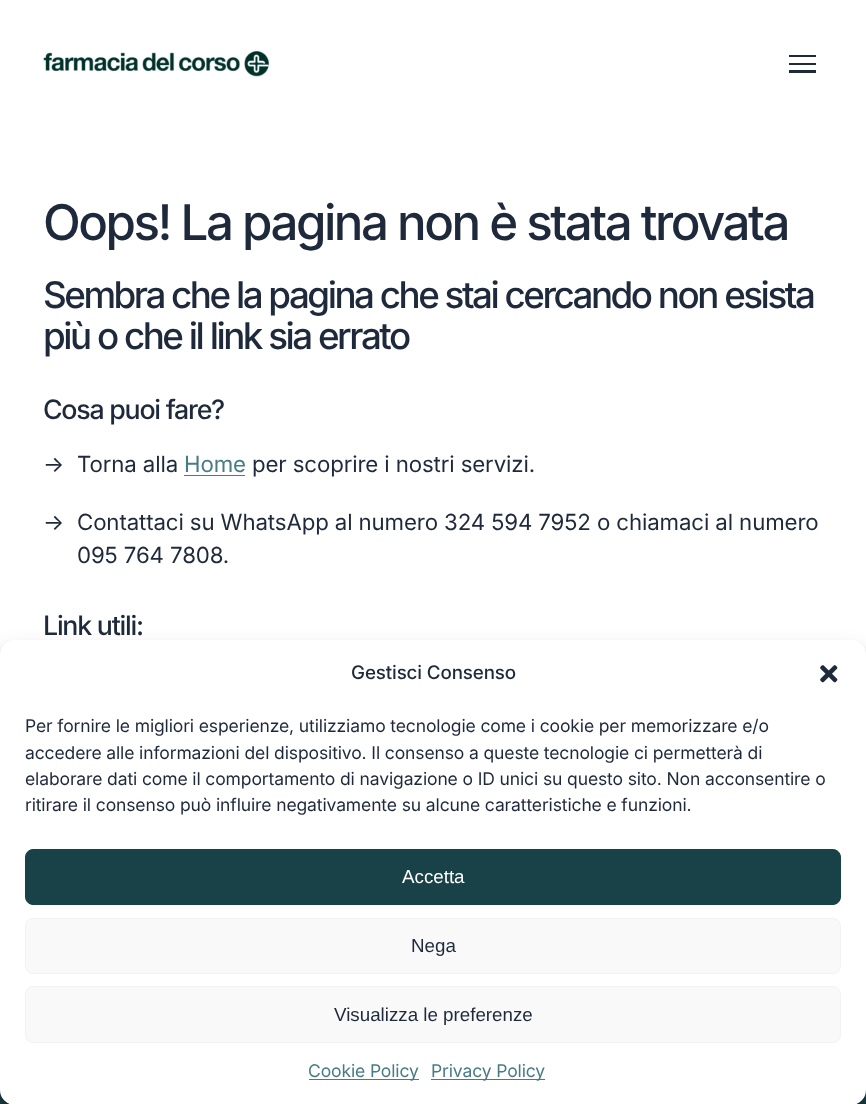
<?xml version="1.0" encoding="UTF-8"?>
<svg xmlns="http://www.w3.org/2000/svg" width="866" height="1104">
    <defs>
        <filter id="blur1" x="-50%" y="-200%" width="200%" height="500%"><feGaussianBlur stdDeviation="4"/></filter>
        <filter id="blur2" x="-50%" y="-200%" width="200%" height="500%"><feGaussianBlur stdDeviation="12.5"/></filter>
    </defs>
    <rect width="100%" height="100%" fill="#FFFFFF"/>
    <image x="43" y="51" width="226" height="26" href="img_01.png"/>
    <rect x="789" y="55" width="27" height="2" fill="#1E293B"/>
    <rect x="789" y="63" width="27" height="2" fill="#1E293B"/>
    <rect x="789" y="70" width="27" height="3" fill="#1E293B"/>
    <text x="43" y="240" font-family="Inter" font-size="49.25" font-weight="500" letter-spacing="-2.5" fill="#1E293B">Oops! La pagina non è stata trovata</text>
    <text font-family="Inter" font-size="36.8" font-weight="500" letter-spacing="-2.5" fill="#1E293B">
        <tspan x="43" y="308">Sembra che la pagina che stai cercando non esista</tspan>
        <tspan x="43" y="349">più o che il link sia errato</tspan>
    </text>
    <text x="43" y="419" font-family="Inter" font-size="26.75" font-weight="500" letter-spacing="-1.25" fill="#1E293B">Cosa puoi fare?</text>
    <text x="43" y="472" font-family="Inter" font-size="22.25" letter-spacing="-0.12" fill="#1E293B">→</text>
    <text x="77" y="472" font-family="Inter" font-size="22.25" letter-spacing="-0.12" fill="#1E293B">Torna alla</text>
    <text x="184" y="472" font-family="Inter" font-size="22.25" letter-spacing="-0.12" fill="#477C85">Home</text>
    <rect x="184" y="475" width="61" height="1" fill="#477C85"/>
    <text x="252" y="472" font-family="Inter" font-size="22.25" letter-spacing="-0.12" fill="#1E293B">per scoprire i nostri servizi.</text>
    <text x="43" y="530" font-family="Inter" font-size="22.25" letter-spacing="-0.12" fill="#1E293B">→</text>
    <text font-family="Inter" font-size="22.25" letter-spacing="-0.12" fill="#1E293B">
        <tspan x="77" y="530">Contattaci su WhatsApp al numero 324 594 7952 o chiamaci al numero</tspan>
        <tspan x="77" y="563">095 764 7808.</tspan>
    </text>
    <text x="43" y="635" font-family="Inter" font-size="26.75" font-weight="500" letter-spacing="-1.25" fill="#1E293B">Link utili:</text>
    <rect x="0" y="1090" width="866" height="14" fill="#184148"/>
    <rect x="0" y="648" width="866" height="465" rx="15" fill="#000000" fill-opacity="0.23" filter="url(#blur1)"/>
    <rect x="0" y="653" width="866" height="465" rx="15" fill="#000000" fill-opacity="0.19" filter="url(#blur2)"/>
    <rect x="0" y="640" width="866" height="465" rx="15" fill="#FFFFFF"/>
    <text x="351" y="679" font-family="Inter" font-size="18.75" font-weight="500" letter-spacing="-0.12" fill="#1E293B">Gestisci Consenso</text>
    <image x="820" y="665" width="18" height="18" href="img_02.png"/>
    <text font-family="Inter" font-size="17.5" letter-spacing="-0.12" fill="#1E293B">
        <tspan x="25" y="732">Per fornire le migliori esperienze, utilizziamo tecnologie come i cookie per memorizzare e/o</tspan>
        <tspan x="25" y="759">accedere alle informazioni del dispositivo. Il consenso a queste tecnologie ci permetterà di</tspan>
        <tspan x="25" y="785">elaborare dati come il comportamento di navigazione o ID unici su questo sito. Non acconsentire o</tspan>
        <tspan x="25" y="811">ritirare il consenso può influire negativamente su alcune caratteristiche e funzioni.</tspan>
    </text>
    <rect x="25.5" y="849.5" width="815" height="55" rx="7.5" fill="#184148" stroke="#184148"/>
    <text x="402" y="883" font-family="Liberation Sans" font-size="18.75" fill="#FFFFFF">Accetta</text>
    <rect x="25.5" y="918.5" width="815" height="55" rx="7.5" fill="#F9F9F9" stroke="#F2F2F2"/>
    <text x="411" y="952" font-family="Liberation Sans" font-size="18.75" fill="#1E293B">Nega</text>
    <rect x="25.5" y="986.5" width="815" height="56" rx="7.5" fill="#F9F9F9" stroke="#F2F2F2"/>
    <text x="334" y="1021" font-family="Liberation Sans" font-size="18.75" fill="#1E293B">Visualizza le preferenze</text>
    <rect x="309" y="1079" width="110" height="1" fill="#477C85"/>
    <text x="308" y="1077" font-family="Inter" font-size="17.5" letter-spacing="-0.12" fill="#477C85">Cookie Policy</text>
    <rect x="431" y="1079" width="114" height="1" fill="#477C85"/>
    <text x="431" y="1077" font-family="Inter" font-size="17.5" letter-spacing="-0.12" fill="#477C85">Privacy Policy</text>
</svg>
